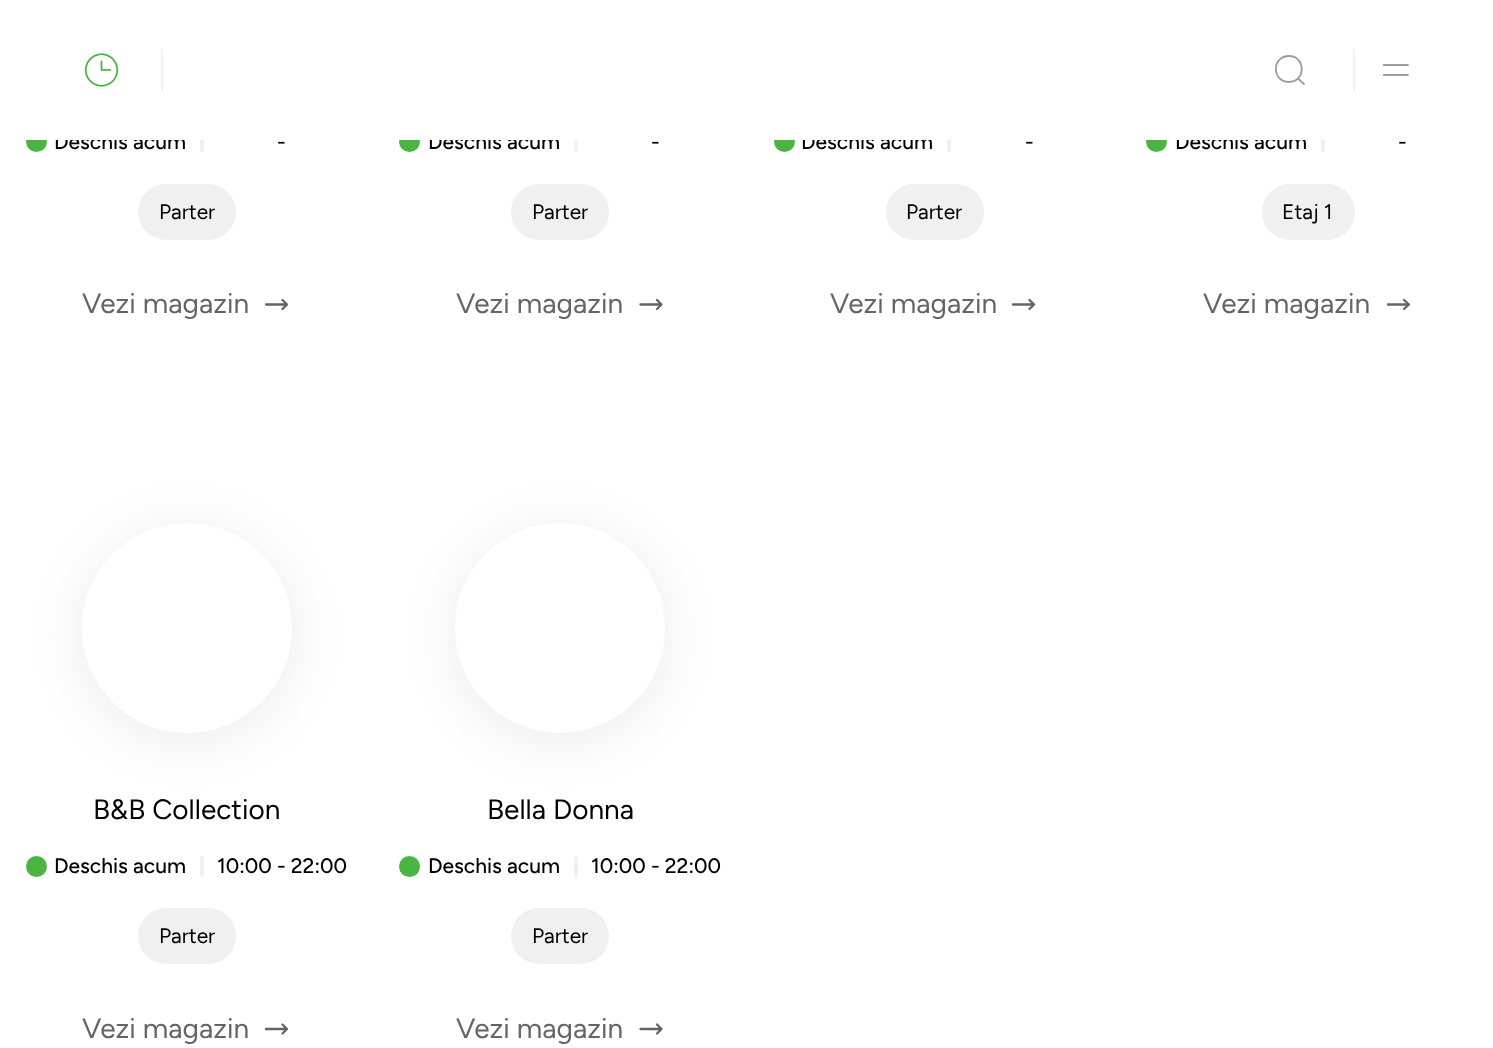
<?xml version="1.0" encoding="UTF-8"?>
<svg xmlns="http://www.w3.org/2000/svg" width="1493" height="1048">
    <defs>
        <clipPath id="clip1"><rect x="1383" y="63" width="28" height="14"/></clipPath>
        <clipPath id="clip2"><path d="M 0 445 H 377 V 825 H 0 Z M 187 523 C 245 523 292 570 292 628 C 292 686 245 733 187 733 C 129 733 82 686 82 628 C 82 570 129 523 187 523 Z" clip-rule="evenodd"/></clipPath>
        <filter id="blur1" x="-50%" y="-200%" width="200%" height="500%"><feGaussianBlur stdDeviation="28"/></filter>
        <clipPath id="clip3"><path d="M 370 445 H 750 V 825 H 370 Z M 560 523 C 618 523 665 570 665 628 C 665 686 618 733 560 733 C 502 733 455 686 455 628 C 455 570 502 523 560 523 Z" clip-rule="evenodd"/></clipPath>
    </defs>
    <rect width="100%" height="100%" fill="#FFFFFF"/>
    <circle cx="36.5" cy="141.5" r="10.5" fill="#4BB543"/>
    <text x="54" y="149" font-family="Figtree" font-size="21" font-weight="500" fill="#000000">Deschis acum</text>
    <rect x="200" y="131" width="4" height="21" rx="2" fill="#F0F0F0"/>
    <circle cx="409.5" cy="141.5" r="10.5" fill="#4BB543"/>
    <text x="428" y="149" font-family="Figtree" font-size="21" font-weight="500" fill="#000000">Deschis acum</text>
    <rect x="574" y="131" width="4" height="21" rx="2" fill="#F0F0F0"/>
    <circle cx="784.5" cy="141.5" r="10.5" fill="#4BB543"/>
    <text x="801" y="149" font-family="Figtree" font-size="21" font-weight="500" fill="#000000">Deschis acum</text>
    <rect x="947" y="131" width="4" height="21" rx="2" fill="#F0F0F0"/>
    <circle cx="1156.5" cy="141.5" r="10.5" fill="#4BB543"/>
    <text x="1175" y="149" font-family="Figtree" font-size="21" font-weight="500" fill="#000000">Deschis acum</text>
    <rect x="1321" y="131" width="4" height="21" rx="2" fill="#F0F0F0"/>
    <rect x="26" y="131" width="1299" height="9" fill="#FFFFFF"/>
    <image x="84" y="53" width="35" height="34" href="img_01.png"/>
    <rect x="161" y="49" width="2" height="42" fill="#F0F0F0"/>
    <path d="M 1289 82 C 1306 82 1306 56 1289 56 C 1271.5 56 1271.5 82 1289 82 Z M 1304 84 L 1298.5 79" fill="none" stroke="#9D9D9D" stroke-width="1.8" stroke-linecap="round" stroke-linejoin="round"/>
    <rect x="1353" y="49" width="2" height="42" fill="#F0F0F0"/>
    <g clip-path="url(#clip1)">
        <path d="M 1383.5 75 H 1408 M 1383.5 65 H 1408" fill="none" stroke="#9D9D9D" stroke-width="1.8" stroke-linecap="round" stroke-linejoin="round"/>
    </g>
    <text x="277" y="149" font-family="Figtree" font-size="21" font-weight="500" fill="#000000">-</text>
    <rect x="138" y="184" width="98" height="56" rx="28" fill="#F0F0F0"/>
    <text x="159" y="219" font-family="Figtree" font-size="21" fill="#000000">Parter</text>
    <text x="82" y="313" font-family="Figtree" font-size="28" fill="#646464">Vezi magazin</text>
    <path d="M 282.5 300 L 287 304.5 M 287 304.5 L 282.5 309 M 287 304.5 H 266" fill="none" stroke="#646464" stroke-width="2.3" stroke-linecap="round" stroke-linejoin="round"/>
    <text x="651" y="149" font-family="Figtree" font-size="21" font-weight="500" fill="#000000">-</text>
    <rect x="511" y="184" width="98" height="56" rx="28" fill="#F0F0F0"/>
    <text x="532" y="219" font-family="Figtree" font-size="21" fill="#000000">Parter</text>
    <text x="456" y="313" font-family="Figtree" font-size="28" fill="#646464">Vezi magazin</text>
    <path d="M 657 300 L 661.5 304.5 M 661.5 304.5 L 657 309 M 661.5 304.5 H 640.5" fill="none" stroke="#646464" stroke-width="2.3" stroke-linecap="round" stroke-linejoin="round"/>
    <text x="1025" y="149" font-family="Figtree" font-size="21" font-weight="500" fill="#000000">-</text>
    <rect x="886" y="184" width="98" height="56" rx="28" fill="#F0F0F0"/>
    <text x="906" y="219" font-family="Figtree" font-size="21" fill="#000000">Parter</text>
    <text x="830" y="313" font-family="Figtree" font-size="28" fill="#646464">Vezi magazin</text>
    <path d="M 1029.5 300 L 1034 304.5 M 1034 304.5 L 1029.5 309 M 1034 304.5 H 1013" fill="none" stroke="#646464" stroke-width="2.3" stroke-linecap="round" stroke-linejoin="round"/>
    <text x="1398" y="149" font-family="Figtree" font-size="21" font-weight="500" fill="#000000">-</text>
    <rect x="1262" y="184" width="93" height="56" rx="28" fill="#F0F0F0"/>
    <text x="1282" y="219" font-family="Figtree" font-size="21" fill="#000000">Etaj 1</text>
    <text x="1203" y="313" font-family="Figtree" font-size="28" fill="#646464">Vezi magazin</text>
    <path d="M 1404 300 L 1409 304.5 M 1409 304.5 L 1404 309 M 1409 304.5 H 1388" fill="none" stroke="#646464" stroke-width="2.3" stroke-linecap="round" stroke-linejoin="round"/>
    <g clip-path="url(#clip2)">
        <rect x="82" y="530" width="210" height="210" rx="105" fill="#000000" fill-opacity="0.08" filter="url(#blur1)"/>
    </g>
    <text x="93" y="819" font-family="Figtree" font-size="28" fill="#000000">B&amp;B Collection</text>
    <circle cx="36.5" cy="866.5" r="10.5" fill="#4BB543"/>
    <text x="54" y="873" font-family="Figtree" font-size="21" font-weight="500" fill="#000000">Deschis acum</text>
    <rect x="200" y="856" width="4" height="21" rx="2" fill="#F0F0F0"/>
    <text x="217" y="873" font-family="Figtree" font-size="21" font-weight="500" fill="#000000">10:00 - 22:00</text>
    <rect x="138" y="908" width="98" height="56" rx="28" fill="#F0F0F0"/>
    <text x="159" y="943" font-family="Figtree" font-size="21" fill="#000000">Parter</text>
    <text x="82" y="1038" font-family="Figtree" font-size="28" fill="#646464">Vezi magazin</text>
    <path d="M 282.5 1024.5 L 287 1029 M 287 1029 L 282.5 1033.5 M 287 1029 H 266" fill="none" stroke="#646464" stroke-width="2.3" stroke-linecap="round" stroke-linejoin="round"/>
    <g clip-path="url(#clip3)">
        <rect x="455" y="530" width="210" height="210" rx="105" fill="#000000" fill-opacity="0.08" filter="url(#blur1)"/>
    </g>
    <text x="487" y="819" font-family="Figtree" font-size="28" fill="#000000">Bella Donna</text>
    <circle cx="409.5" cy="866.5" r="10.5" fill="#4BB543"/>
    <text x="428" y="873" font-family="Figtree" font-size="21" font-weight="500" fill="#000000">Deschis acum</text>
    <rect x="574" y="856" width="4" height="21" rx="2" fill="#F0F0F0"/>
    <text x="591" y="873" font-family="Figtree" font-size="21" font-weight="500" fill="#000000">10:00 - 22:00</text>
    <rect x="511" y="908" width="98" height="56" rx="28" fill="#F0F0F0"/>
    <text x="532" y="943" font-family="Figtree" font-size="21" fill="#000000">Parter</text>
    <text x="456" y="1038" font-family="Figtree" font-size="28" fill="#646464">Vezi magazin</text>
    <path d="M 657 1024.5 L 661.5 1029 M 661.5 1029 L 657 1033.5 M 661.5 1029 H 640.5" fill="none" stroke="#646464" stroke-width="2.3" stroke-linecap="round" stroke-linejoin="round"/>
</svg>
